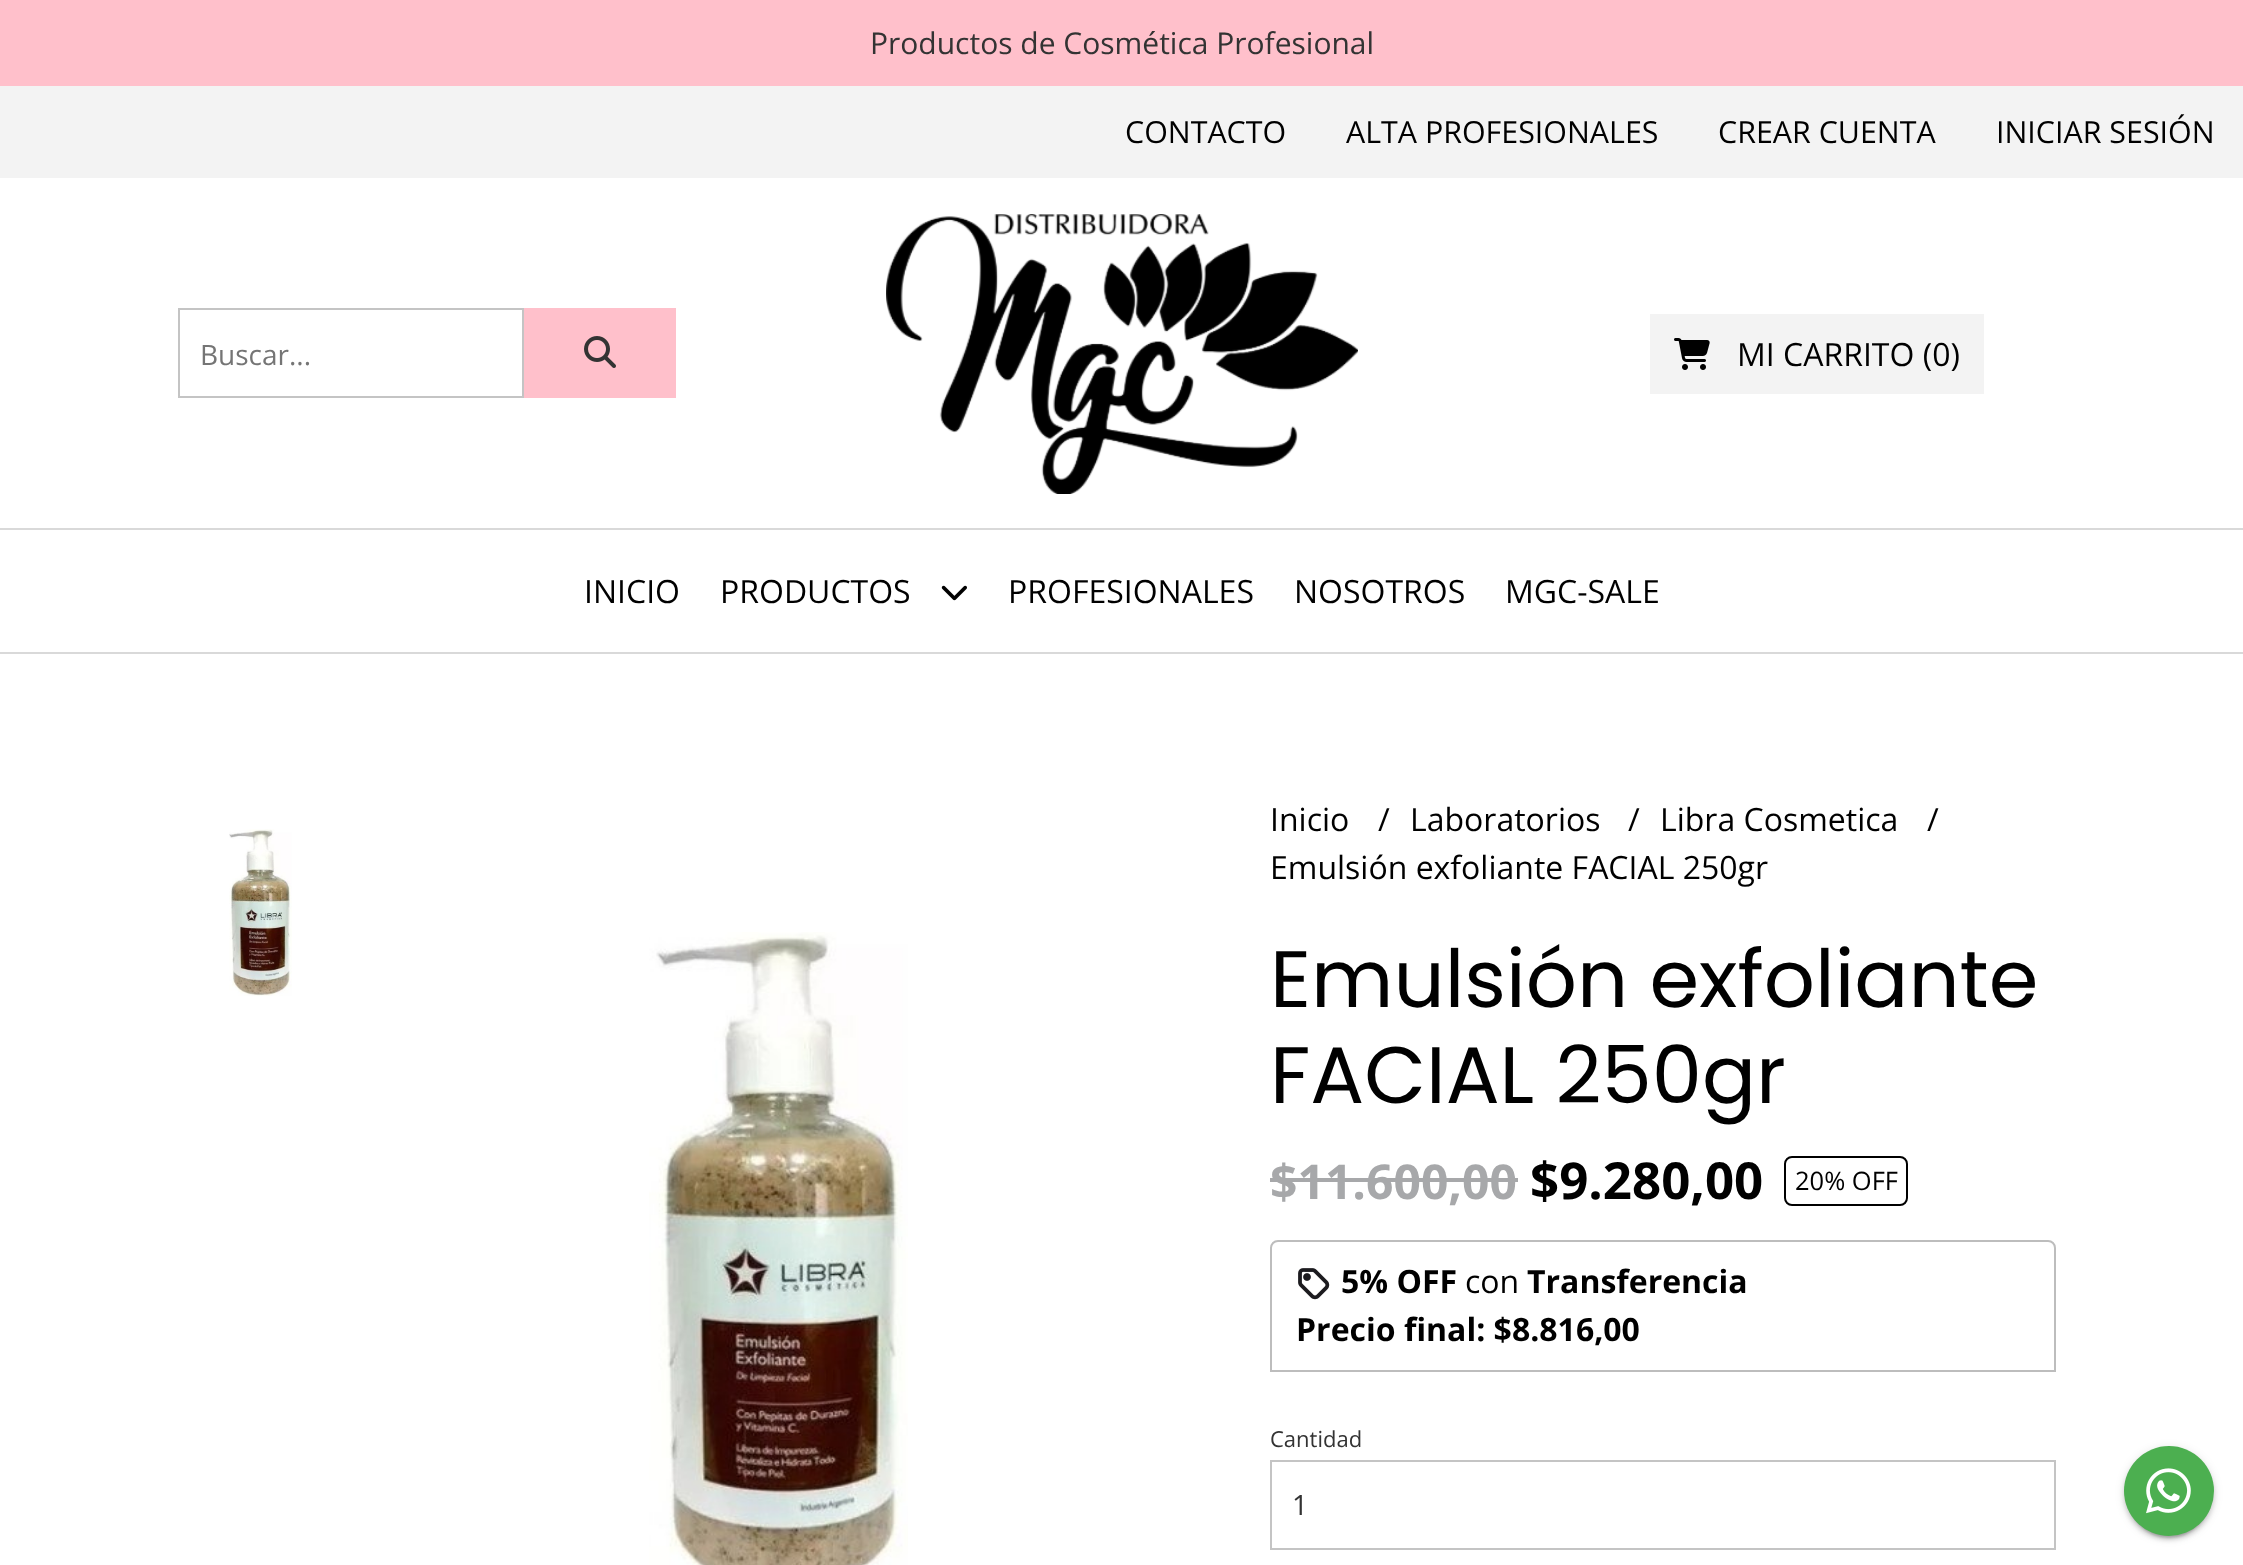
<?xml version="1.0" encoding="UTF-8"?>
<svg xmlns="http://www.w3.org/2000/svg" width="2243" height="1565">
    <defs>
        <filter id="blur1" x="-50%" y="-200%" width="200%" height="500%"><feGaussianBlur stdDeviation="1"/></filter>
        <filter id="blur2" x="-50%" y="-200%" width="200%" height="500%"><feGaussianBlur stdDeviation="5"/></filter>
        <filter id="blur3" x="-50%" y="-200%" width="200%" height="500%"><feGaussianBlur stdDeviation="2"/></filter>
    </defs>
    <rect width="100%" height="100%" fill="#FFFFFF"/>
    <rect x="0" y="0" width="2243" height="86" fill="#FFC0CB"/>
    <text x="870" y="54" font-family="Open Sans" font-size="30" fill="#333333">Productos de Cosmética Profesional</text>
    <rect x="0" y="86" width="2243" height="92" fill="#F3F3F3"/>
    <text x="1125" y="143" font-family="Open Sans" font-size="30.4" fill="#000000">CONTACTO</text>
    <text x="1346" y="143" font-family="Open Sans" font-size="30.4" fill="#000000">ALTA PROFESIONALES</text>
    <text x="1718" y="143" font-family="Open Sans" font-size="30.4" fill="#000000">CREAR CUENTA</text>
    <text x="1996" y="143" font-family="Open Sans" font-size="30.4" fill="#000000">INICIAR SESIÓN</text>
    <rect x="179" y="309" width="344" height="88" fill="none" stroke="#C4C4C4" stroke-width="2"/>
    <text x="200" y="365" font-family="Open Sans" font-size="28" fill="#757575">Buscar...</text>
    <rect x="524" y="308" width="152" height="90" fill="#FFC0CB"/>
    <image x="584" y="336" width="32" height="32" href="img_01.png"/>
    <image x="886" y="214" width="472" height="280" href="img_02.png"/>
    <rect x="1650" y="314" width="334" height="80" fill="#F3F3F3"/>
    <image x="1674" y="338" width="36" height="32" href="img_03.png"/>
    <text x="1737" y="366" font-family="Open Sans" font-size="32" fill="#000000">MI CARRITO (0)</text>
    <rect x="0" y="528" width="2243" height="2" fill="#D9D9D9"/>
    <rect x="0" y="652" width="2243" height="2" fill="#D9D9D9"/>
    <text x="584" y="603" font-family="Open Sans" font-size="32" fill="#000000">INICIO</text>
    <text x="720" y="603" font-family="Open Sans" font-size="32" fill="#000000">PRODUCTOS</text>
    <image x="941" y="585" width="26" height="16" href="img_04.png"/>
    <text x="1008" y="603" font-family="Open Sans" font-size="32" fill="#000000">PROFESIONALES</text>
    <text x="1294" y="603" font-family="Open Sans" font-size="32" fill="#000000">NOSOTROS</text>
    <text x="1505" y="603" font-family="Open Sans" font-size="32" fill="#000000">MGC-SALE</text>
    <image x="229" y="829" width="63" height="167" href="img_05.png"/>
    <image x="649" y="932" width="259" height="633" href="img_06.png"/>
    <text x="1270" y="831" font-family="Open Sans" font-size="32" fill="#000000">Inicio</text>
    <text x="1378" y="831" font-family="Open Sans" font-size="32" fill="#000000">/</text>
    <text x="1410" y="831" font-family="Open Sans" font-size="32" fill="#000000">Laboratorios</text>
    <text x="1628" y="831" font-family="Open Sans" font-size="32" fill="#000000">/</text>
    <text x="1660" y="831" font-family="Open Sans" font-size="32" fill="#000000">Libra Cosmetica</text>
    <text x="1927" y="831" font-family="Open Sans" font-size="32" fill="#000000">/</text>
    <text x="1270" y="879" font-family="Open Sans" font-size="32" fill="#000000">Emulsión exfoliante FACIAL 250gr</text>
    <text font-family="Poppins" font-size="80" fill="#000000">
        <tspan x="1270" y="1007">Emulsión exfoliante</tspan>
        <tspan x="1270" y="1103">FACIAL 250gr</tspan>
    </text>
    <text x="1270" y="1199" font-family="Open Sans" font-size="48" font-weight="700" fill="#A7A8AA">$11.600,00</text>
    <rect x="1270" y="1178" width="248" height="4" fill="#A7A8AA"/>
    <text x="1530" y="1199" font-family="Open Sans" font-size="51" font-weight="700" fill="#000000">$9.280,00</text>
    <rect x="1785" y="1157" width="122" height="48" rx="7" fill="none" stroke="#000000" stroke-width="2"/>
    <text x="1795" y="1190" font-family="Open Sans" font-size="25.5" fill="#000000">20% OFF</text>
    <path d="M 1278 1241 H 2048 C 2052 1241 2055 1244 2055 1248 V 1371 H 1271 V 1248 C 1271 1244 1274 1241 1278 1241 Z" fill="none" stroke="#BDBDBD" stroke-width="2"/>
    <image x="1298" y="1268" width="32" height="32" href="img_07.png"/>
    <text x="1341" y="1293" font-family="Open Sans" font-size="32" font-weight="700" fill="#000000">5% OFF</text>
    <text x="1465" y="1293" font-family="Open Sans" font-size="32" fill="#000000">con</text>
    <text x="1527" y="1293" font-family="Open Sans" font-size="32" font-weight="700" fill="#000000">Transferencia</text>
    <text x="1296" y="1341" font-family="Open Sans" font-size="32" font-weight="700" fill="#000000">Precio final: $8.816,00</text>
    <text x="1270" y="1447" font-family="Open Sans" font-size="22" fill="#333333">Cantidad</text>
    <rect x="1271" y="1461" width="784" height="88" fill="none" stroke="#C4C4C4" stroke-width="2"/>
    <text x="1292" y="1515" font-family="Open Sans" font-size="28" fill="#333333">1</text>
    <rect x="2128" y="1456" width="82" height="82" rx="41" fill="#000000" fill-opacity="0.2" filter="url(#blur1)"/>
    <rect x="2124" y="1448" width="90" height="90" rx="45" fill="#000000" fill-opacity="0.12" filter="url(#blur2)"/>
    <rect x="2124" y="1450" width="90" height="90" rx="45" fill="#000000" fill-opacity="0.14" filter="url(#blur3)"/>
    <circle cx="2169" cy="1491" r="45" fill="#4CAF50"/>
    <image x="2146" y="1468" width="45" height="46" href="img_08.png"/>
</svg>
